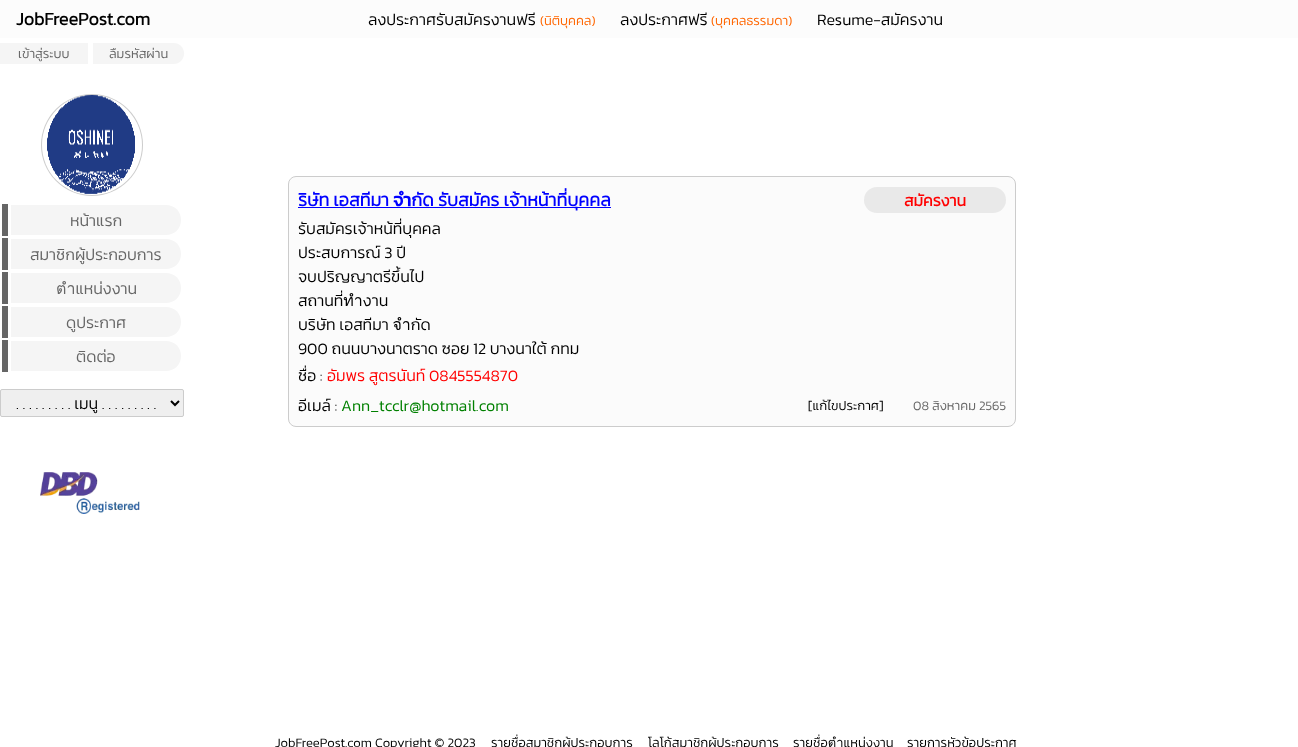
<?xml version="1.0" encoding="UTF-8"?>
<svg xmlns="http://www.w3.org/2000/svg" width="1298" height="747">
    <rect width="100%" height="100%" fill="#FFFFFF"/>
    <rect x="0" y="0" width="1298" height="38" fill="#FCFCFC"/>
    <text x="16" y="25" font-family="Kanit" font-size="18" font-weight="700" fill="#000000">JobFreePost.com</text>
    <text x="368" y="25" font-family="Kanit" font-size="16" font-weight="300" fill="#000000">ลงประกาศรับสมัครงานฟรี</text>
    <text x="540" y="25" font-family="Kanit" font-size="13" font-weight="300" fill="#FF6600">(นิติบุคคล)</text>
    <text x="620" y="25" font-family="Kanit" font-size="16" font-weight="300" fill="#000000">ลงประกาศฟรี</text>
    <text x="711" y="25" font-family="Kanit" font-size="13" font-weight="300" fill="#FF6600">(บุคคลธรรมดา)</text>
    <text x="817" y="25" font-family="Kanit" font-size="16" font-weight="300" fill="#000000">Resume-สมัครงาน</text>
    <rect x="0" y="43" width="88" height="21" fill="#F5F5F5"/>
    <text x="18" y="58" font-family="Kanit" font-size="13" font-weight="300" fill="#666666">เข้าสู่ระบบ</text>
    <path d="M 93 43 H 173.5 C 179.5 43 184 47.5 184 53.5 C 184 59.5 179.5 64 173.5 64 H 93 Z" fill="#F5F5F5"/>
    <text x="109" y="58" font-family="Kanit" font-size="13" font-weight="300" fill="#666666">ลืมรหัสผ่าน</text>
    <circle cx="92" cy="145" r="51" fill="#CCCCCC"/>
    <image x="42" y="95" width="100" height="100" href="img_01.png"/>
    <rect x="2" y="204" width="6" height="32" fill="#666666"/>
    <path d="M 11 205 H 166 C 174.5 205 181 211.5 181 220 C 181 228.5 174.5 235 166 235 H 11 Z" fill="#F5F5F5"/>
    <text x="70" y="226" font-family="Kanit" font-size="16" font-weight="300" fill="#666666">หน้าแรก</text>
    <rect x="2" y="238" width="6" height="32" fill="#666666"/>
    <path d="M 11 239 H 166 C 174.5 239 181 245.5 181 254 C 181 262.5 174.5 269 166 269 H 11 Z" fill="#F5F5F5"/>
    <text x="30" y="260" font-family="Kanit" font-size="16" font-weight="300" fill="#666666">สมาชิกผู้ประกอบการ</text>
    <rect x="2" y="272" width="6" height="32" fill="#666666"/>
    <path d="M 11 273 H 166 C 174.5 273 181 279.5 181 288 C 181 296.5 174.5 303 166 303 H 11 Z" fill="#F5F5F5"/>
    <text x="56" y="294" font-family="Kanit" font-size="16" font-weight="300" fill="#666666">ตำแหน่งงาน</text>
    <rect x="2" y="306" width="6" height="32" fill="#666666"/>
    <path d="M 11 307 H 166 C 174.5 307 181 313.5 181 322 C 181 330.5 174.5 337 166 337 H 11 Z" fill="#F5F5F5"/>
    <text x="66" y="328" font-family="Kanit" font-size="16" font-weight="300" fill="#666666">ดูประกาศ</text>
    <rect x="2" y="340" width="6" height="32" fill="#666666"/>
    <path d="M 11 341 H 166 C 174.5 341 181 347.5 181 356 C 181 364.5 174.5 371 166 371 H 11 Z" fill="#F5F5F5"/>
    <text x="76" y="362" font-family="Kanit" font-size="16" font-weight="300" fill="#666666">ติดต่อ</text>
    <rect x="0.5" y="389.5" width="183" height="27" rx="1.5" fill="#EFEFEF" stroke="#CCCCCC"/>
    <path d="M 171 401 L 175 405 L 179 401" fill="none" stroke="#000000" stroke-width="2"/>
    <text x="16" y="409" font-family="Kanit" font-size="16" font-weight="300" fill="#000000">. . . . . . . . . เมนู . . . . . . . . .</text>
    <image x="40" y="472" width="100" height="42" href="img_02.png"/>
    <rect x="288.5" y="176.5" width="727" height="250" rx="7.5" fill="#FBFBFB" stroke="#CCCCCC"/>
    <rect x="298" y="207" width="313" height="1" fill="#0000FF"/>
    <text x="298" y="206" font-family="Kanit" font-size="18" font-weight="700" fill="#0000FF">ริษัท เอสทีมา จำกัด รับสมัคร เจ้าหน้าที่บุคคล</text>
    <rect x="864" y="187" width="142" height="26" rx="13" fill="#E9E9E9"/>
    <text x="904" y="206" font-family="Kanit" font-size="16" font-weight="700" fill="#FF0000">สมัครงาน</text>
    <text font-family="Kanit" font-size="16" font-weight="300" fill="#000000">
        <tspan x="298" y="234">รับสมัครเจ้าหน้ที่บุคคล</tspan>
        <tspan x="298" y="258">ประสบการณ์ 3 ปี</tspan>
        <tspan x="298" y="282">จบปริญญาตรีขึ้นไป</tspan>
        <tspan x="298" y="306">สถานที่ทำงาน</tspan>
        <tspan x="298" y="330">บริษัท เอสทีมา จำกัด</tspan>
        <tspan x="298" y="354">900 ถนนบางนาตราด ซอย 12 บางนาใต้ กทม</tspan>
        <tspan x="298" y="381">ชื่อ :</tspan>
    </text>
    <text x="327" y="381" font-family="Kanit" font-size="16" font-weight="300" fill="#FF0000">อัมพร สูตรนันท์ 0845554870</text>
    <text x="298" y="411" font-family="Kanit" font-size="16" font-weight="300" fill="#000000">อีเมล์ :</text>
    <text x="341" y="411" font-family="Kanit" font-size="16" font-weight="300" fill="#008000">Ann_tcclr@hotmail.com</text>
    <text x="808" y="410" font-family="Kanit" font-size="13" font-weight="300" fill="#000000">[แก้ไขประกาศ]</text>
    <text x="913" y="410" font-family="Kanit" font-size="13" font-weight="300" fill="#666666">08 สิงหาคม 2565</text>
    <text x="275" y="747" font-family="Kanit" font-size="13" font-weight="300" fill="#000000">JobFreePost.com Copyright © 2023</text>
    <text x="491" y="747" font-family="Kanit" font-size="13" font-weight="300" fill="#000000">รายชื่อสมาชิกผู้ประกอบการ</text>
    <text x="648" y="747" font-family="Kanit" font-size="13" font-weight="300" fill="#000000">โลโก้สมาชิกผู้ประกอบการ</text>
    <text x="793" y="747" font-family="Kanit" font-size="13" font-weight="300" fill="#000000">รายชื่อตำแหน่งงาน</text>
    <text x="907" y="747" font-family="Kanit" font-size="13" font-weight="300" fill="#000000">รายการหัวข้อประกาศ</text>
</svg>
